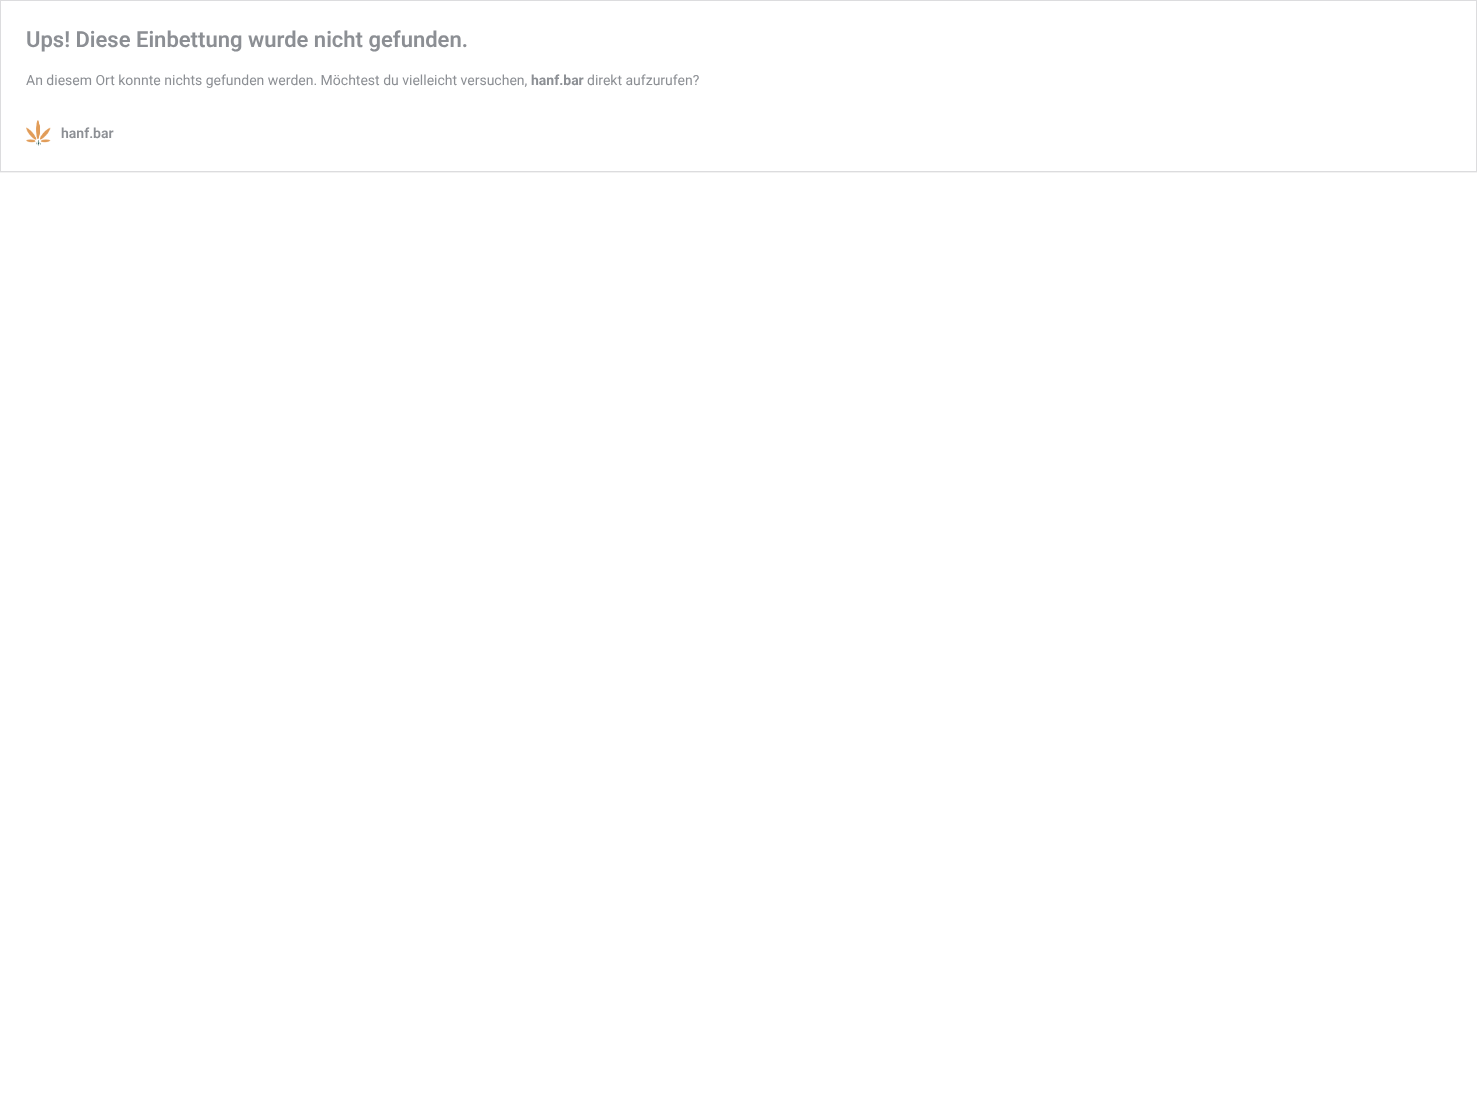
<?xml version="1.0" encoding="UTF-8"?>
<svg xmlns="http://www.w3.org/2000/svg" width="1477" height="1098">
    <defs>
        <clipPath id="clip1"><rect x="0" y="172" width="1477" height="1"/></clipPath>
        <filter id="blur1" x="-50%" y="-200%" width="200%" height="500%"><feGaussianBlur stdDeviation="0.5"/></filter>
    </defs>
    <rect width="100%" height="100%" fill="#FFFFFF"/>
    <g clip-path="url(#clip1)">
        <rect x="0" y="1" width="1477" height="172" fill="#000000" fill-opacity="0.05" filter="url(#blur1)"/>
    </g>
    <rect x="0.5" y="0.5" width="1476" height="171" fill="none" stroke="#DCDCDE"/>
    <text x="26" y="47" font-family="Roboto" font-size="22" font-weight="600" fill="#8C8F94">Ups! Diese Einbettung wurde nicht gefunden.</text>
    <text x="26" y="85" font-family="Roboto" font-size="14" fill="#8C8F94">An diesem Ort konnte nichts gefunden werden. Möchtest du vielleicht versuchen,</text>
    <text x="531" y="85" font-family="Roboto" font-size="14" font-weight="700" fill="#8C8F94">hanf.bar</text>
    <text x="587" y="85" font-family="Roboto" font-size="14" fill="#8C8F94">direkt aufzurufen?</text>
    <image x="26" y="120" width="25" height="26" href="img_01.png"/>
    <text x="61" y="138" font-family="Roboto" font-size="14" font-weight="600" fill="#8C8F94">hanf.bar</text>
</svg>
